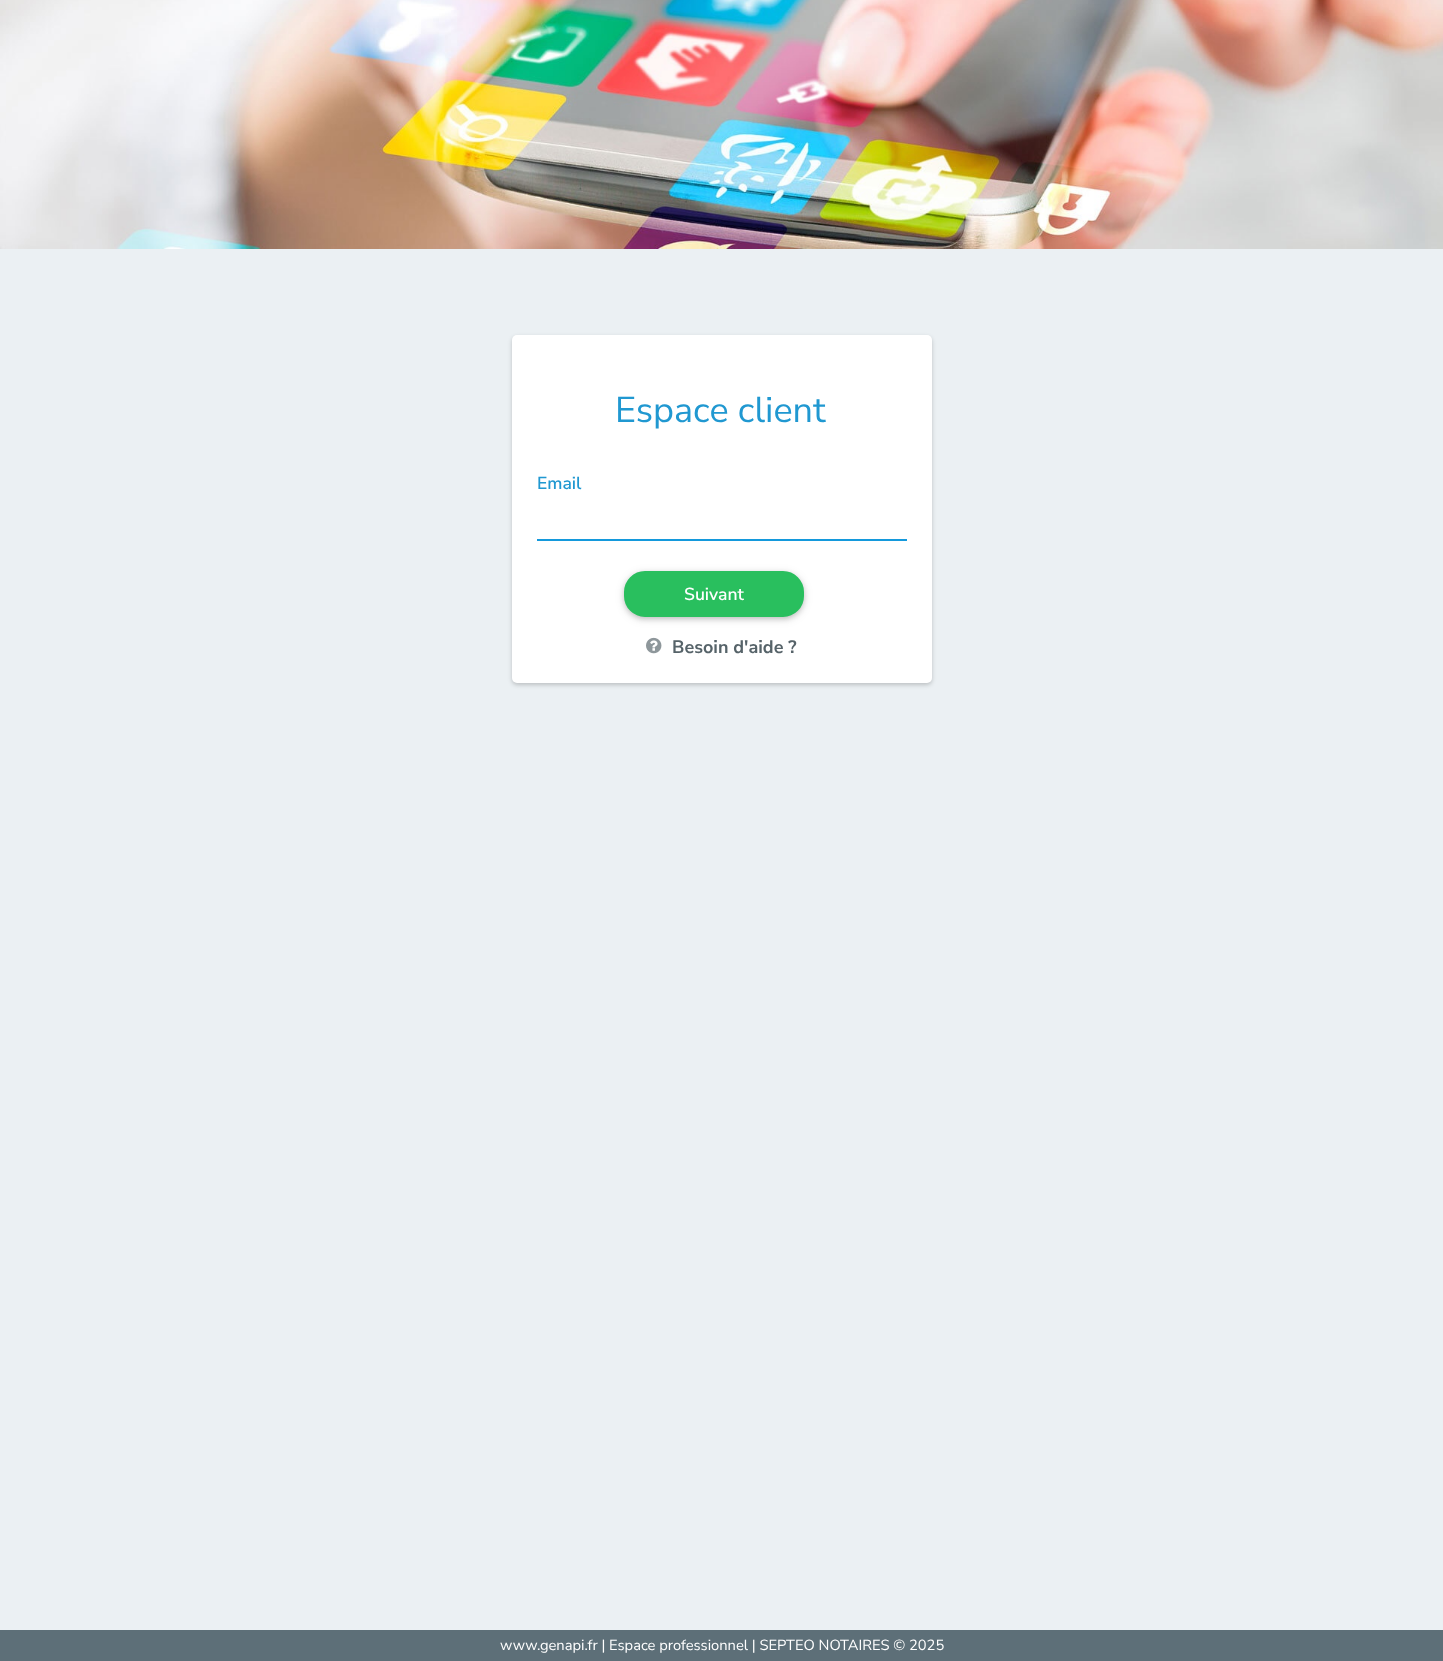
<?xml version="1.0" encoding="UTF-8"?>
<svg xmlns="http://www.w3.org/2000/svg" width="1443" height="1661">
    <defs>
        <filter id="blur1" x="-50%" y="-200%" width="200%" height="500%"><feGaussianBlur stdDeviation="2"/></filter>
        <filter id="blur2" x="-50%" y="-200%" width="200%" height="500%"><feGaussianBlur stdDeviation="5"/></filter>
        <filter id="blur3" x="-50%" y="-200%" width="200%" height="500%"><feGaussianBlur stdDeviation="2.5"/></filter>
    </defs>
    <rect width="100%" height="100%" fill="#EBF0F3"/>
    <image x="0" y="0" width="1443" height="249" href="img_01.png"/>
    <rect x="512" y="337" width="420" height="348" rx="5" fill="#000000" fill-opacity="0.2" filter="url(#blur1)"/>
    <rect x="512" y="335" width="420" height="348" rx="5" fill="#FFFFFF"/>
    <text x="615" y="422" font-family="Nunito Sans" font-size="36" fill="#2098D1">Espace client</text>
    <text x="537" y="489" font-family="Nunito Sans" font-size="17.5" font-weight="600" fill="#2098D1">Email</text>
    <rect x="537" y="539" width="370" height="2" fill="#1499DC"/>
    <rect x="624" y="573" width="180" height="46" rx="21" fill="#000000" fill-opacity="0.12" filter="url(#blur2)"/>
    <rect x="624" y="573" width="180" height="46" rx="21" fill="#000000" fill-opacity="0.16" filter="url(#blur3)"/>
    <rect x="625" y="572" width="178" height="44" rx="20" fill="#29BF5E" stroke="#29BF5E" stroke-width="2"/>
    <text x="684" y="600" font-family="Nunito Sans" font-size="17.5" font-weight="600" fill="#FFFFFF">Suivant</text>
    <image x="646" y="637" width="16" height="17" href="img_02.png"/>
    <text x="672" y="653" font-family="Nunito Sans" font-size="18" font-weight="700" fill="#566369">Besoin d'aide ?</text>
    <rect x="0" y="1630" width="1443" height="31" fill="#5D6F78"/>
    <text x="500" y="1650" font-family="Nunito Sans" font-size="14.7" fill="#FFFFFF">www.genapi.fr | Espace professionnel | SEPTEO NOTAIRES © 2025</text>
</svg>
